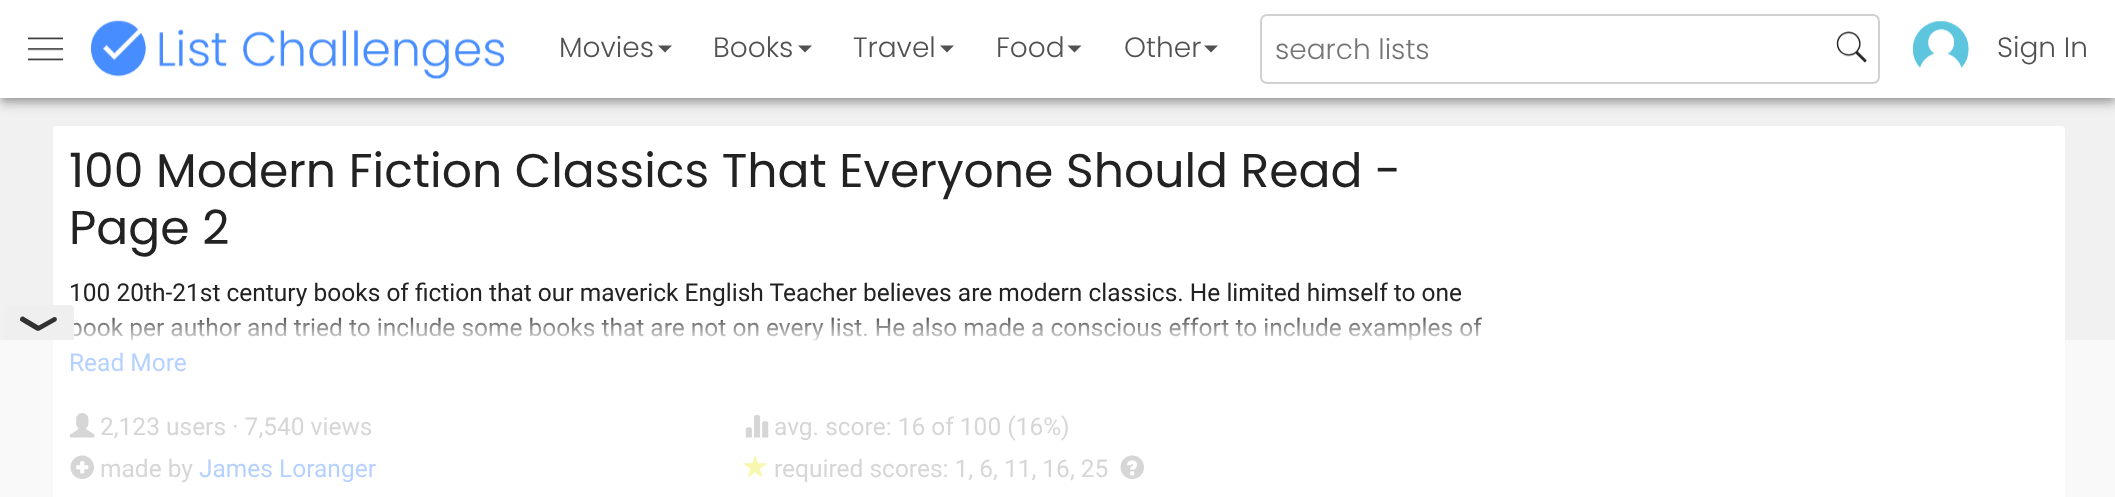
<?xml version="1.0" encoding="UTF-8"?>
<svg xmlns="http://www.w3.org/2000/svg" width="2115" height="497">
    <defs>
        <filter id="blur1" x="-50%" y="-200%" width="200%" height="500%"><feGaussianBlur stdDeviation="3.5"/></filter>
        <filter id="blur2" x="-50%" y="-200%" width="200%" height="500%"><feGaussianBlur stdDeviation="9"/></filter>
        <filter id="blur3" x="-50%" y="-200%" width="200%" height="500%"><feGaussianBlur stdDeviation="4.5"/></filter>
        <linearGradient id="g1" gradientUnits="userSpaceOnUse" x1="779" y1="310" x2="779" y2="345"><stop offset="0" stop-color="#FFFFFF" stop-opacity="0"/><stop offset="1" stop-color="#FFFFFF"/></linearGradient>
    </defs>
    <rect width="100%" height="100%" fill="#F1F1F1"/>
    <rect x="2" y="5" width="2112" height="95" fill="#000000" fill-opacity="0.2" filter="url(#blur1)"/>
    <rect x="53" y="126" width="2012" height="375" rx="4" fill="#FFFFFF"/>
    <rect x="0" y="2" width="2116" height="98" fill="#000000" fill-opacity="0.12" filter="url(#blur2)"/>
    <rect x="0" y="7" width="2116" height="98" fill="#000000" fill-opacity="0.14" filter="url(#blur3)"/>
    <rect x="0" y="0" width="2115" height="98" fill="#FFFFFF"/>
    <image x="28" y="37" width="35" height="24" href="img_01.png"/>
    <image x="91" y="20" width="413" height="59" href="img_02.png"/>
    <text x="559" y="57" font-family="Poppins" font-size="28" font-weight="300" fill="#515151">Movies</text>
    <path d="M 658 45.5 H 672 L 665 52.5 Z" fill="#515151"/>
    <text x="713" y="57" font-family="Poppins" font-size="28" font-weight="300" fill="#515151">Books</text>
    <path d="M 798 45.5 H 812 L 805 52.5 Z" fill="#515151"/>
    <text x="853" y="57" font-family="Poppins" font-size="28" font-weight="300" fill="#515151">Travel</text>
    <path d="M 940 45.5 H 954 L 947 52.5 Z" fill="#515151"/>
    <text x="996" y="57" font-family="Poppins" font-size="28" font-weight="300" fill="#515151">Food</text>
    <path d="M 1067.5 45.5 H 1081.5 L 1074.5 52.5 Z" fill="#515151"/>
    <text x="1124" y="57" font-family="Poppins" font-size="28" font-weight="300" fill="#515151">Other</text>
    <path d="M 1204 45.5 H 1218 L 1211 52.5 Z" fill="#515151"/>
    <rect x="1261" y="15" width="618" height="68" rx="6" fill="none" stroke="#D1D1D1" stroke-width="2"/>
    <text x="1275" y="59" font-family="Poppins" font-size="28" font-weight="300" fill="#757575">search lists</text>
    <image x="1836" y="31" width="31" height="32" href="img_03.png"/>
    <image x="1912" y="20" width="57" height="49" href="img_04.png"/>
    <text x="1997" y="57" font-family="Poppins" font-size="28" font-weight="300" fill="#515151">Sign In</text>
    <text font-family="Poppins" font-size="47.25" fill="#222222">
        <tspan x="69" y="187">100 Modern Fiction Classics That Everyone Should Read -</tspan>
        <tspan x="69" y="244">Page 2</tspan>
    </text>
    <text font-family="Roboto" font-size="24.5" fill="#222222">
        <tspan x="69" y="301">100 20th-21st century books of fiction that our maverick English Teacher believes are modern classics. He limited himself to one</tspan>
        <tspan x="69" y="336">book per author and tried to include some books that are not on every list. He also made a conscious effort to include examples of</tspan>
    </text>
    <rect x="70" y="317" width="1412" height="25" fill="url(#g1)"/>
    <text x="69" y="371" font-family="Roboto" font-size="24.5" fill="#488DFF">Read More</text>
    <image x="70" y="413" width="25" height="25" href="img_05.png"/>
    <text x="100" y="435" font-family="Roboto" font-size="24.5" fill="#999999">2,123 users · 7,540 views</text>
    <image x="70" y="455" width="24" height="24" href="img_06.png"/>
    <text x="100" y="477" font-family="Roboto" font-size="24.5" fill="#999999">made by</text>
    <text x="199" y="477" font-family="Roboto" font-size="24.5" fill="#488DFF">James Loranger</text>
    <image x="745" y="415" width="24" height="23" href="img_07.png"/>
    <text x="774" y="435" font-family="Roboto" font-size="24.5" fill="#999999">avg. score: 16 of 100 (16%)</text>
    <image x="743" y="455" width="25" height="23" href="img_08.png"/>
    <text x="774" y="477" font-family="Roboto" font-size="24.5" fill="#999999">required scores: 1, 6, 11, 16, 25</text>
    <image x="1120" y="455" width="24" height="24" href="img_09.png"/>
    <path d="M 8 305 H 70 C 72 305 74 307 74 309 V 340 H 4 V 309 C 4 307 6 305 8 305 Z" fill="#EFEFEF"/>
    <path d="M 24 317 L 40 326.5 C 41.5 329 39 331.5 36.5 330.5 L 20.5 321 C 19 318.5 21.5 315.5 24 317 Z" fill="#313131"/>
    <path d="M 38 326 L 54 317 C 57 316.5 58 320 55.5 321.5 L 39.5 330.5 C 37 331 35.5 327 38 326 Z" fill="#313131"/>
    <rect x="0" y="340" width="2115" height="157" fill="#FFFFFF" fill-opacity="0.6"/>
</svg>
